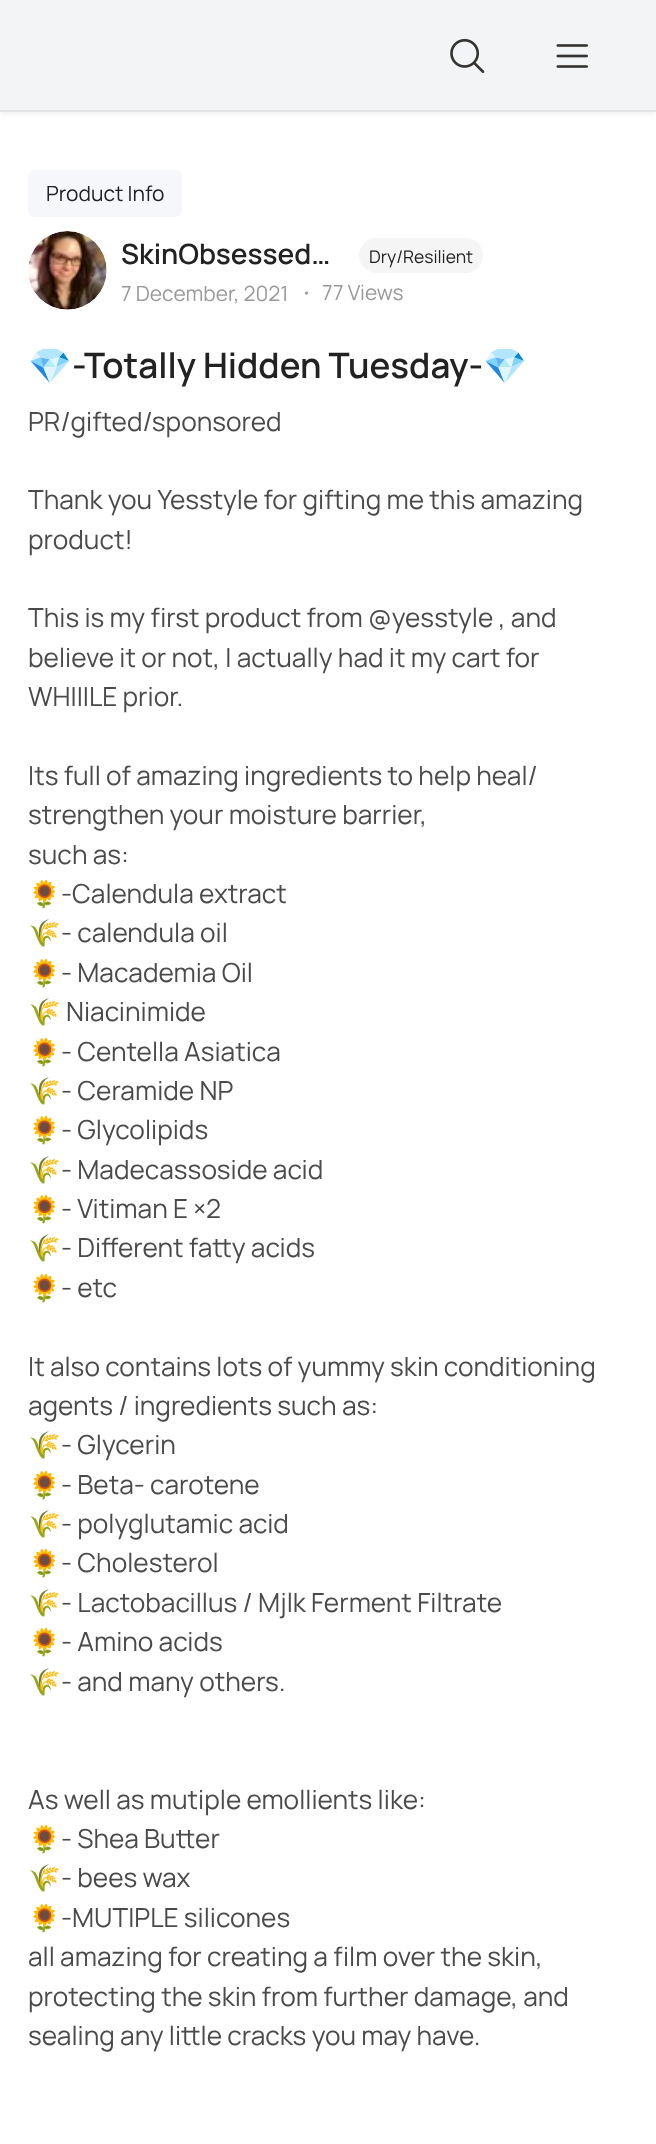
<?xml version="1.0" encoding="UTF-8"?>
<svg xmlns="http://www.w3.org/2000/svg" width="656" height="2144">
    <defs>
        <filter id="blur1" x="-50%" y="-200%" width="200%" height="500%"><feGaussianBlur stdDeviation="2.5"/></filter>
    </defs>
    <rect width="100%" height="100%" fill="#FFFFFF"/>
    <rect x="0" y="2" width="656" height="112" fill="#000000" fill-opacity="0.06" filter="url(#blur1)"/>
    <rect x="0" y="0" width="656" height="110" fill="#F3F4F6"/>
    <rect x="0" y="110" width="656" height="2" fill="#E5E5E5"/>
    <image x="450" y="38" width="35" height="35" href="img_01.png"/>
    <image x="556" y="44" width="32" height="24" href="img_02.png"/>
    <rect x="28" y="170" width="154" height="47" rx="7" fill="#F6F7FA"/>
    <text x="46" y="201" font-family="Manrope" font-size="21" fill="#222222">Product Info</text>
    <image x="28" y="231" width="79" height="79" href="img_03.png"/>
    <text x="121" y="264" font-family="Manrope" font-size="28" font-weight="600" fill="#222222">SkinObsessed…</text>
    <rect x="359" y="238" width="124" height="35" rx="17.5" fill="#F5F5F5"/>
    <text x="369" y="263" font-family="Manrope" font-size="17.5" fill="#222222">Dry/Resilient</text>
    <text x="121" y="301" font-family="Manrope" font-size="21" fill="#999999">7 December, 2021</text>
    <path d="M 305.5 294.5 C 304.5 293.5 305 292 306.5 291.5 C 309.5 291.5 307.5 296 305.5 294.5 Z" fill="#999999"/>
    <text x="322" y="300" font-family="Manrope" font-size="21" fill="#999999">77 Views</text>
    <text x="28" y="378" font-family="Noto Color Emoji" font-size="35" font-weight="700" fill="#222222">💎</text>
    <text x="72" y="378" font-family="Manrope" font-size="35" font-weight="600" fill="#222222">-Totally Hidden Tuesday-</text>
    <text x="483" y="378" font-family="Noto Color Emoji" font-size="35" font-weight="700" fill="#222222">💎</text>
    <text x="28" y="431" font-family="Manrope" font-size="26.25" fill="#4A4A4A">PR/gifted/sponsored</text>
    <text font-family="Manrope" font-size="26.25" fill="#4A4A4A">
        <tspan x="28" y="509">Thank you Yesstyle for gifting me this amazing</tspan>
        <tspan x="28" y="549">product!</tspan>
    </text>
    <text font-family="Manrope" font-size="26.25" fill="#4A4A4A">
        <tspan x="28" y="627">This is my first product from @yesstyle , and</tspan>
        <tspan x="28" y="667">believe it or not, I actually had it my cart for</tspan>
        <tspan x="28" y="706">WHIIILE prior.</tspan>
    </text>
    <text font-family="Manrope" font-size="26.25" fill="#4A4A4A">
        <tspan x="28" y="785">Its full of amazing ingredients to help heal/</tspan>
        <tspan x="28" y="824">strengthen your moisture barrier,</tspan>
        <tspan x="28" y="864">such as:</tspan>
    </text>
    <text x="28" y="903" font-family="Noto Color Emoji" font-size="26.25" fill="#4A4A4A">🌻</text>
    <text x="61" y="903" font-family="Manrope" font-size="26.25" fill="#4A4A4A">-Calendula extract</text>
    <text x="28" y="942" font-family="Noto Color Emoji" font-size="26.25" fill="#4A4A4A">🌾</text>
    <text x="61" y="942" font-family="Manrope" font-size="26.25" fill="#4A4A4A">- calendula oil</text>
    <text x="28" y="982" font-family="Noto Color Emoji" font-size="26.25" fill="#4A4A4A">🌻</text>
    <text x="61" y="982" font-family="Manrope" font-size="26.25" fill="#4A4A4A">- Macademia Oil</text>
    <text x="28" y="1021" font-family="Noto Color Emoji" font-size="26.25" fill="#4A4A4A">🌾</text>
    <text x="66" y="1021" font-family="Manrope" font-size="26.25" fill="#4A4A4A">Niacinimide</text>
    <text x="28" y="1061" font-family="Noto Color Emoji" font-size="26.25" fill="#4A4A4A">🌻</text>
    <text x="61" y="1061" font-family="Manrope" font-size="26.25" fill="#4A4A4A">- Centella Asiatica</text>
    <text x="28" y="1100" font-family="Noto Color Emoji" font-size="26.25" fill="#4A4A4A">🌾</text>
    <text x="61" y="1100" font-family="Manrope" font-size="26.25" fill="#4A4A4A">- Ceramide NP</text>
    <text x="28" y="1139" font-family="Noto Color Emoji" font-size="26.25" fill="#4A4A4A">🌻</text>
    <text x="61" y="1139" font-family="Manrope" font-size="26.25" fill="#4A4A4A">- Glycolipids</text>
    <text x="28" y="1179" font-family="Noto Color Emoji" font-size="26.25" fill="#4A4A4A">🌾</text>
    <text x="61" y="1179" font-family="Manrope" font-size="26.25" fill="#4A4A4A">- Madecassoside acid</text>
    <text x="28" y="1218" font-family="Noto Color Emoji" font-size="26.25" fill="#4A4A4A">🌻</text>
    <text x="61" y="1218" font-family="Manrope" font-size="26.25" fill="#4A4A4A">- Vitiman E ×2</text>
    <text x="28" y="1257" font-family="Noto Color Emoji" font-size="26.25" fill="#4A4A4A">🌾</text>
    <text x="61" y="1257" font-family="Manrope" font-size="26.25" fill="#4A4A4A">- Different fatty acids</text>
    <text x="28" y="1297" font-family="Noto Color Emoji" font-size="26.25" fill="#4A4A4A">🌻</text>
    <text x="61" y="1297" font-family="Manrope" font-size="26.25" fill="#4A4A4A">- etc</text>
    <text font-family="Manrope" font-size="26.25" fill="#4A4A4A">
        <tspan x="28" y="1376">It also contains lots of yummy skin conditioning</tspan>
        <tspan x="28" y="1415">agents / ingredients such as:</tspan>
    </text>
    <text x="28" y="1454" font-family="Noto Color Emoji" font-size="26.25" fill="#4A4A4A">🌾</text>
    <text x="61" y="1454" font-family="Manrope" font-size="26.25" fill="#4A4A4A">- Glycerin</text>
    <text x="28" y="1494" font-family="Noto Color Emoji" font-size="26.25" fill="#4A4A4A">🌻</text>
    <text x="61" y="1494" font-family="Manrope" font-size="26.25" fill="#4A4A4A">- Beta- carotene</text>
    <text x="28" y="1533" font-family="Noto Color Emoji" font-size="26.25" fill="#4A4A4A">🌾</text>
    <text x="61" y="1533" font-family="Manrope" font-size="26.25" fill="#4A4A4A">- polyglutamic acid</text>
    <text x="28" y="1572" font-family="Noto Color Emoji" font-size="26.25" fill="#4A4A4A">🌻</text>
    <text x="61" y="1572" font-family="Manrope" font-size="26.25" fill="#4A4A4A">- Cholesterol</text>
    <text x="28" y="1612" font-family="Noto Color Emoji" font-size="26.25" fill="#4A4A4A">🌾</text>
    <text x="61" y="1612" font-family="Manrope" font-size="26.25" fill="#4A4A4A">- Lactobacillus / Mjlk Ferment Filtrate</text>
    <text x="28" y="1651" font-family="Noto Color Emoji" font-size="26.25" fill="#4A4A4A">🌻</text>
    <text x="61" y="1651" font-family="Manrope" font-size="26.25" fill="#4A4A4A">- Amino acids</text>
    <text x="28" y="1691" font-family="Noto Color Emoji" font-size="26.25" fill="#4A4A4A">🌾</text>
    <text x="61" y="1691" font-family="Manrope" font-size="26.25" fill="#4A4A4A">- and many others.</text>
    <text x="28" y="1809" font-family="Manrope" font-size="26.25" fill="#4A4A4A">As well as mutiple emollients like:</text>
    <text x="28" y="1848" font-family="Noto Color Emoji" font-size="26.25" fill="#4A4A4A">🌻</text>
    <text x="61" y="1848" font-family="Manrope" font-size="26.25" fill="#4A4A4A">- Shea Butter</text>
    <text x="28" y="1887" font-family="Noto Color Emoji" font-size="26.25" fill="#4A4A4A">🌾</text>
    <text x="61" y="1887" font-family="Manrope" font-size="26.25" fill="#4A4A4A">- bees wax</text>
    <text x="28" y="1927" font-family="Noto Color Emoji" font-size="26.25" fill="#4A4A4A">🌻</text>
    <text x="61" y="1927" font-family="Manrope" font-size="26.25" fill="#4A4A4A">-MUTIPLE silicones</text>
    <text font-family="Manrope" font-size="26.25" fill="#4A4A4A">
        <tspan x="28" y="1966">all amazing for creating a film over the skin,</tspan>
        <tspan x="28" y="2006">protecting the skin from further damage, and</tspan>
        <tspan x="28" y="2045">sealing any little cracks you may have.</tspan>
    </text>
</svg>
